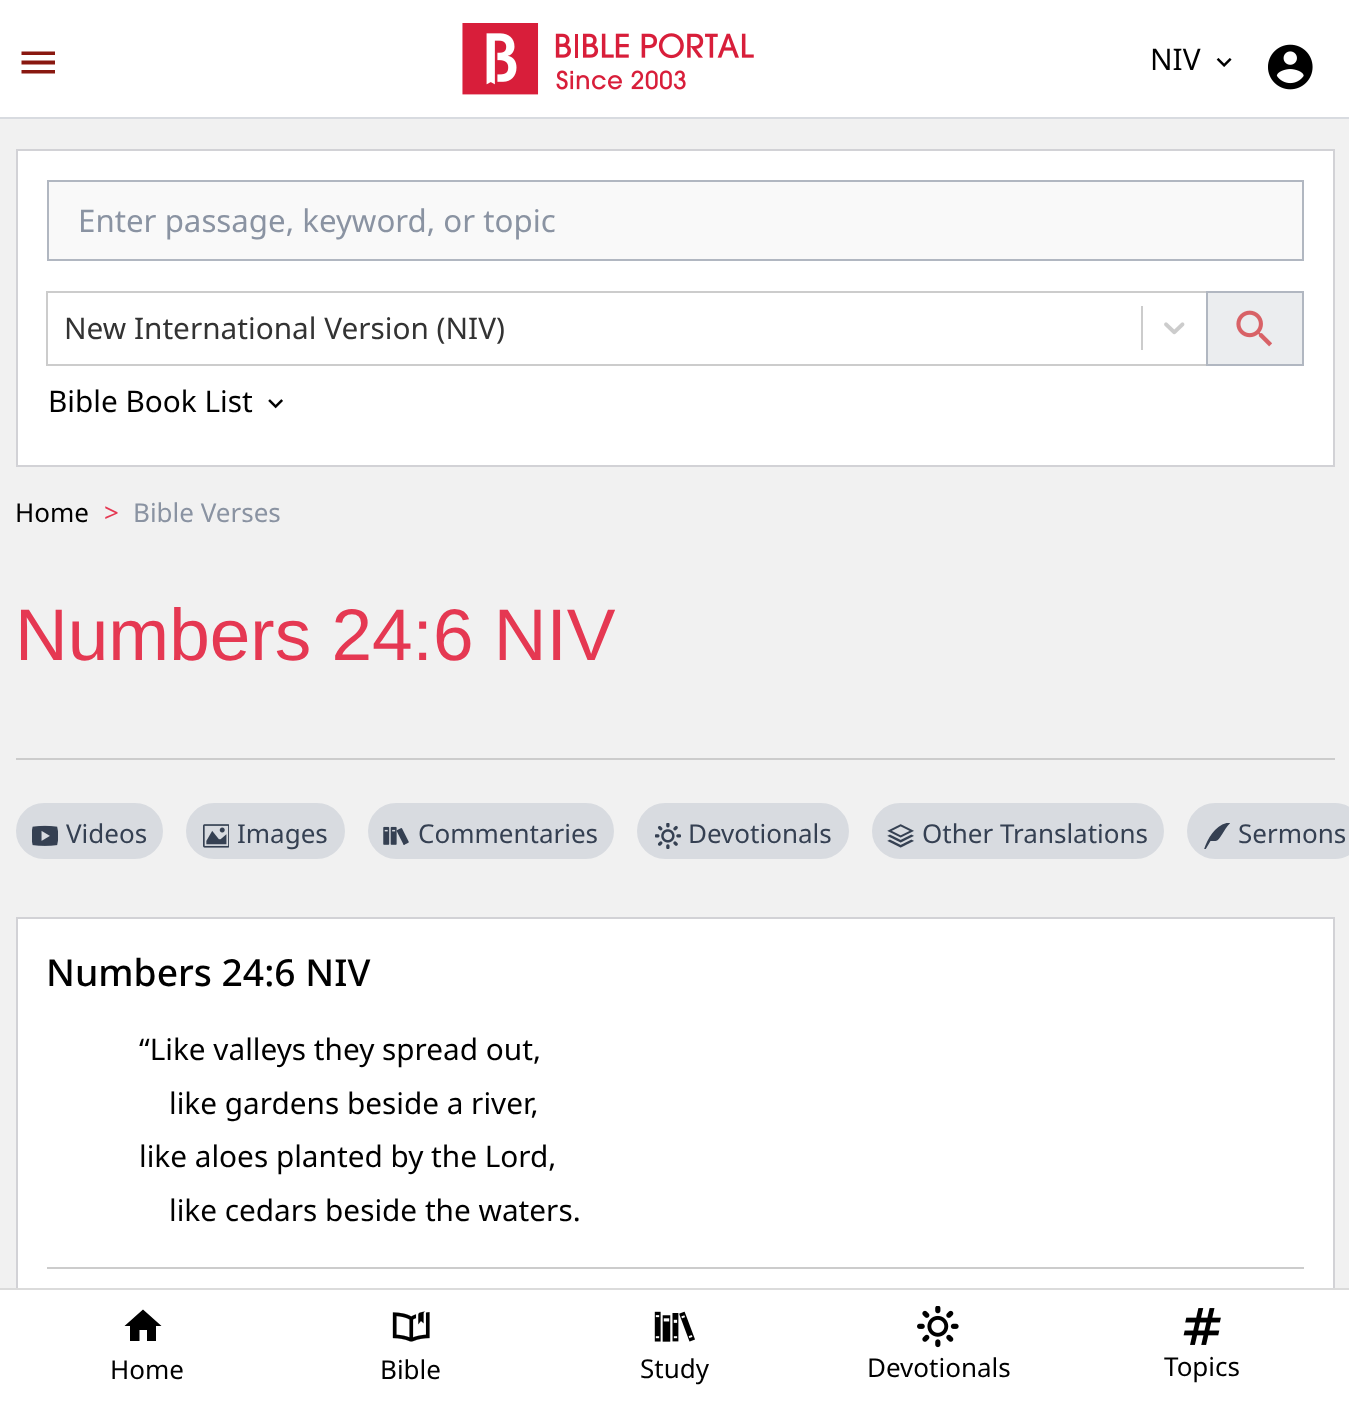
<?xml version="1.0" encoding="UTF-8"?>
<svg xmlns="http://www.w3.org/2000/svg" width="1349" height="1403">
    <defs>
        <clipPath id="clip1"><rect x="1204" y="823" width="26" height="26"/></clipPath>
    </defs>
    <rect width="100%" height="100%" fill="#F1F1F1"/>
    <rect x="0" y="0" width="1349" height="117" fill="#FFFFFF"/>
    <rect x="0" y="117" width="1349" height="2" fill="#D8DBE0"/>
    <path d="M 21.5 73.5 H 55 V 70 H 21.5 Z M 21.5 64.5 H 55 V 60.5 H 21.5 Z M 21.5 51.5 V 55 H 55 V 51.5 Z" fill="#891810"/>
    <image x="462" y="23" width="292" height="72" href="img_01.png"/>
    <text x="1150" y="70" font-family="Noto Sans" font-size="29.75" fill="#000000">NIV</text>
    <image x="1216" y="58" width="16" height="9" href="img_02.png"/>
    <image x="1268" y="44" width="45" height="46" href="img_03.png"/>
    <rect x="17" y="150" width="1317" height="316" fill="#FFFFFF" stroke="#D2D2D6" stroke-width="2"/>
    <rect x="48" y="181" width="1255" height="79" fill="#F9F9F9" stroke="#B1B7C1" stroke-width="2"/>
    <text x="78" y="232" font-family="Noto Sans" font-size="31.25" fill="#8A93A2">Enter passage, keyword, or topic</text>
    <rect x="47" y="292" width="1160" height="73" fill="none" stroke="#CCCCCC" stroke-width="2"/>
    <text x="64" y="339" font-family="Noto Sans" font-size="29.75" fill="#333333">New International Version (NIV)</text>
    <rect x="1141" y="306" width="2" height="44" fill="#CCCCCC"/>
    <image x="1164" y="322" width="21" height="13" href="img_04.png"/>
    <rect x="1207" y="292" width="96" height="73" fill="#EBEDEF" stroke="#B1B7C1" stroke-width="2"/>
    <image x="1236" y="310" width="36" height="37" href="img_05.png"/>
    <text x="48" y="412" font-family="Noto Sans" font-size="29.75" fill="#000000">Bible Book List</text>
    <image x="268" y="399" width="15" height="10" href="img_06.png"/>
    <text x="15" y="522" font-family="Noto Sans" font-size="26" fill="#000000">Home</text>
    <text x="104" y="522" font-family="Noto Sans" font-size="26" fill="#E53852">&gt;</text>
    <text x="133" y="522" font-family="Noto Sans" font-size="26" fill="#8A93A2">Bible Verses</text>
    <rect x="16" y="758" width="1319" height="2" fill="#CCCCCC"/>
    <text x="15" y="660" font-family="Liberation Sans" font-size="73" fill="#E53852">Numbers 24:6 NIV</text>
    <rect x="17" y="804" width="145" height="54" rx="27" fill="#D8DBE0" stroke="#D8DBE0" stroke-width="2"/>
    <image x="32" y="825" width="26" height="21" href="img_07.png"/>
    <text x="66" y="843" font-family="Noto Sans" font-size="26" fill="#354052">Videos</text>
    <rect x="187" y="804" width="157" height="54" rx="27" fill="#D8DBE0" stroke="#D8DBE0" stroke-width="2"/>
    <image x="203" y="824" width="26" height="24" href="img_08.png"/>
    <text x="237" y="843" font-family="Noto Sans" font-size="26" fill="#354052">Images</text>
    <rect x="369" y="804" width="244" height="54" rx="27" fill="#D8DBE0" stroke="#D8DBE0" stroke-width="2"/>
    <image x="383" y="826" width="26" height="19" href="img_09.png"/>
    <text x="418" y="843" font-family="Noto Sans" font-size="26" fill="#354052">Commentaries</text>
    <rect x="638" y="804" width="210" height="54" rx="27" fill="#D8DBE0" stroke="#D8DBE0" stroke-width="2"/>
    <image x="655" y="823" width="26" height="26" href="img_10.png"/>
    <text x="688" y="843" font-family="Noto Sans" font-size="26" fill="#354052">Devotionals</text>
    <rect x="873" y="804" width="290" height="54" rx="27" fill="#D8DBE0" stroke="#D8DBE0" stroke-width="2"/>
    <image x="887" y="824" width="27" height="24" href="img_11.png"/>
    <text x="922" y="843" font-family="Noto Sans" font-size="26" fill="#354052">Other Translations</text>
    <rect x="1188" y="804" width="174" height="54" rx="27" fill="#D8DBE0" stroke="#D8DBE0" stroke-width="2"/>
    <g clip-path="url(#clip1)">
        <path d="M 1204 849.5 C 1207.5 839 1216 822.5 1231 822.5 C 1224 828 1220.5 841 1215.5 841 H 1210.5 L 1205.5 849.5 Z" fill="#354052"/>
    </g>
    <text x="1238" y="843" font-family="Noto Sans" font-size="26" fill="#354052">Sermons</text>
    <rect x="18" y="919" width="1315" height="369" fill="#FFFFFF"/>
    <rect x="17" y="918" width="1317" height="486" fill="none" stroke="#D2D2D6" stroke-width="2"/>
    <text x="46" y="986" font-family="Noto Sans" font-size="37.25" font-weight="500" fill="#000000">Numbers 24:6 NIV</text>
    <text x="139" y="1060" font-family="Noto Sans" font-size="29.75" fill="#000000">“Like valleys they spread out,</text>
    <text x="169" y="1114" font-family="Noto Sans" font-size="29.75" fill="#000000">like gardens beside a river,</text>
    <text x="139" y="1167" font-family="Noto Sans" font-size="29.75" fill="#000000">like aloes planted by the Lord,</text>
    <text x="169" y="1221" font-family="Noto Sans" font-size="29.75" fill="#000000">like cedars beside the waters.</text>
    <rect x="47" y="1267" width="1257" height="2" fill="#CCCCCC"/>
    <rect x="0" y="1290" width="1349" height="113" fill="#FFFFFF"/>
    <rect x="0" y="1288" width="1349" height="2" fill="#DBDBDB"/>
    <path d="M 139.5 1341 V 1330 H 147 V 1341 H 156 V 1326 H 161.5 L 143 1309.5 L 124.5 1326 H 130 V 1341 Z" fill="#000000"/>
    <text x="110" y="1379" font-family="Noto Sans" font-size="26" fill="#000000">Home</text>
    <image x="392" y="1311" width="38" height="31" href="img_12.png"/>
    <text x="380" y="1379" font-family="Noto Sans" font-size="26" fill="#000000">Bible</text>
    <image x="654" y="1311" width="41" height="31" href="img_13.png"/>
    <text x="640" y="1378" font-family="Noto Sans" font-size="26" fill="#000000">Study</text>
    <image x="917" y="1306" width="42" height="42" href="img_14.png"/>
    <text x="867" y="1377" font-family="Noto Sans" font-size="26" fill="#000000">Devotionals</text>
    <image x="1183" y="1308" width="38" height="37" href="img_15.png"/>
    <text x="1164" y="1376" font-family="Noto Sans" font-size="26" fill="#000000">Topics</text>
</svg>
